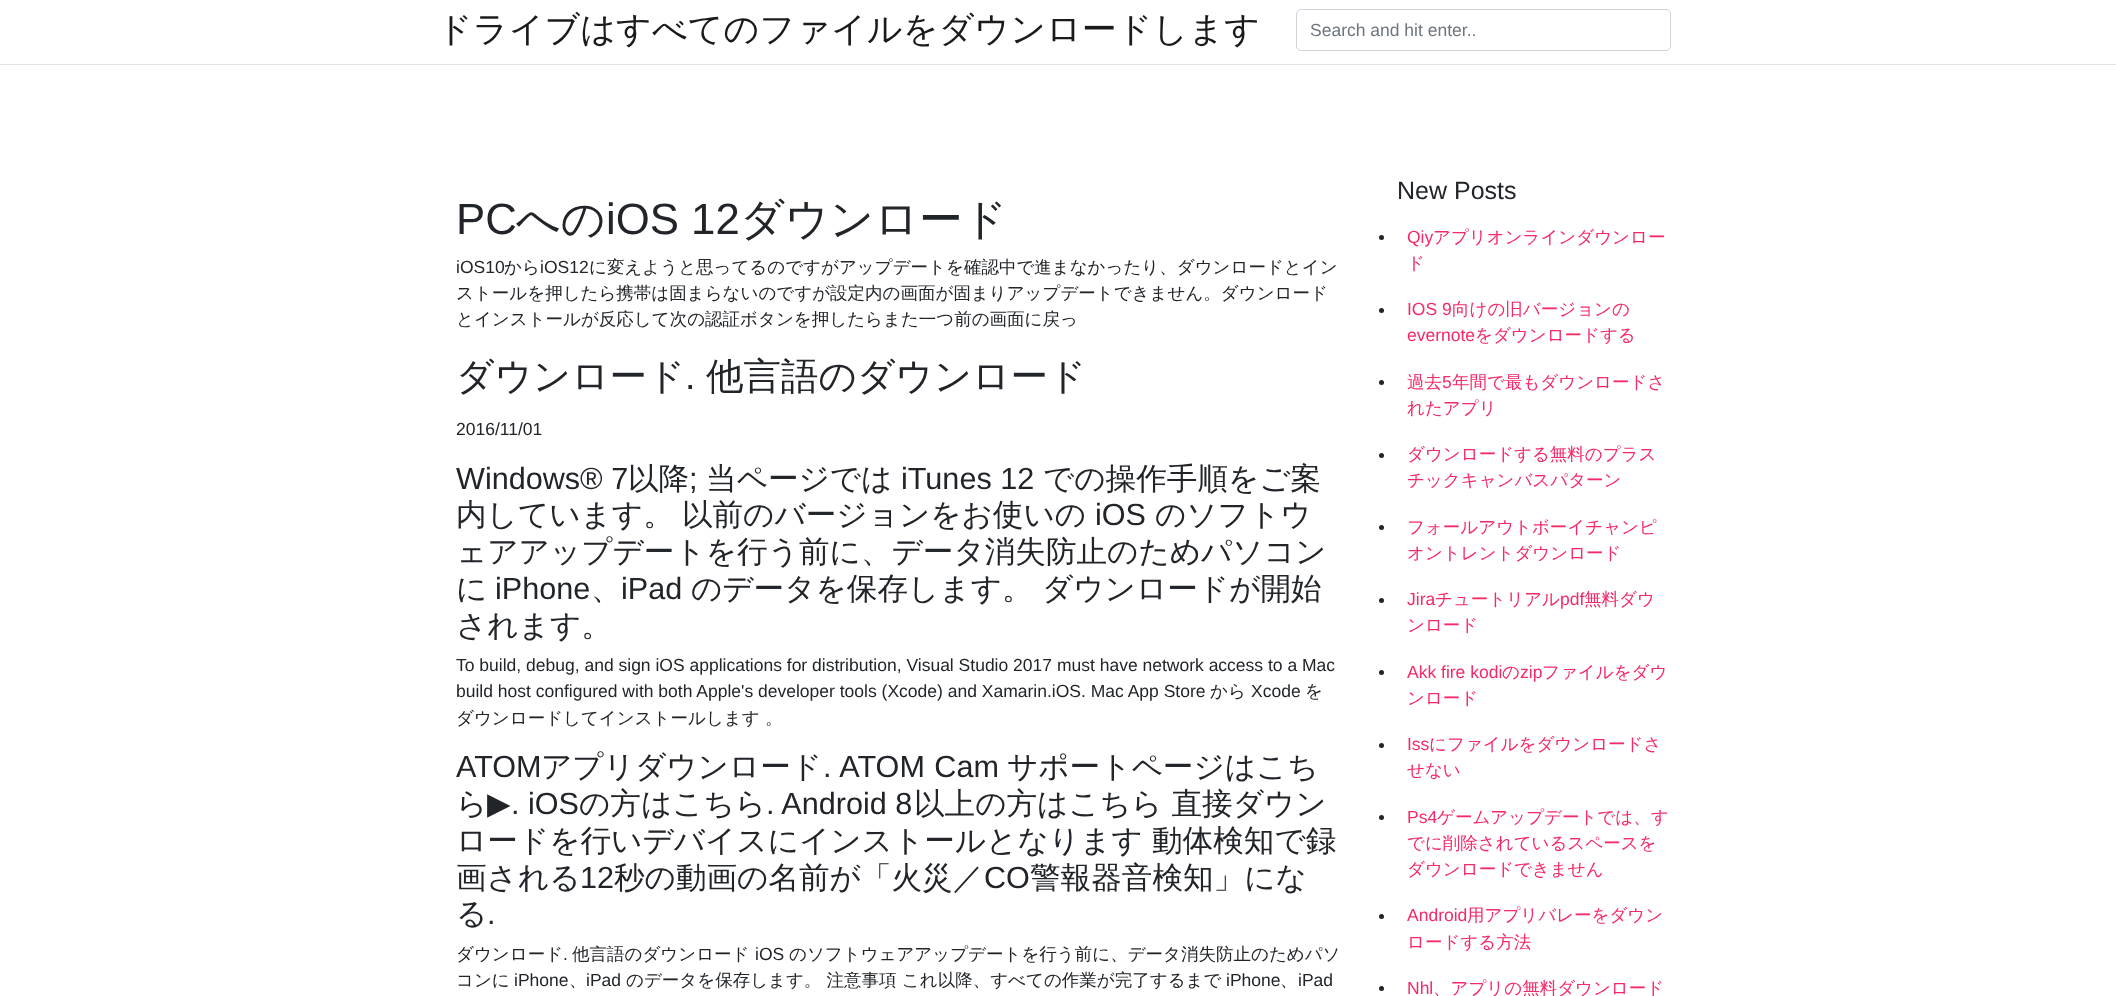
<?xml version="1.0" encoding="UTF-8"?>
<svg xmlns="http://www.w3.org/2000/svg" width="2116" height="996">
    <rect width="100%" height="100%" fill="#FFFFFF"/>
    <rect x="0" y="64" width="2116" height="1" fill="#E1E2E3"/>
    <text x="437" y="41" font-family="WenQuanYi Zen Hei" font-size="35" font-weight="500" fill="#1A1A1A">ドライブはすべてのファイルをダウンロードします</text>
    <rect x="1296.5" y="9.5" width="374" height="41" rx="4.5" fill="none" stroke="#CED4DA"/>
    <text x="1310" y="36" font-family="Liberation Sans" font-size="17.5" fill="#6C757D">Search and hit enter..</text>
    <text x="456" y="234" font-family="Liberation Sans" font-size="43.75" fill="#212529">PC</text>
    <text x="516" y="234" font-family="WenQuanYi Zen Hei" font-size="43.75" font-weight="500" fill="#212529">への</text>
    <text x="606" y="234" font-family="Liberation Sans" font-size="43.75" fill="#212529">iOS 12</text>
    <text x="740" y="234" font-family="WenQuanYi Zen Hei" font-size="43.75" font-weight="500" fill="#212529">ダウンロード</text>
    <text x="456" y="273" font-family="Liberation Sans" font-size="17.5" fill="#212529">iOS10</text>
    <text x="504" y="273" font-family="WenQuanYi Zen Hei" font-size="17.5" font-weight="500" fill="#212529">から</text>
    <text x="540" y="273" font-family="Liberation Sans" font-size="17.5" fill="#212529">iOS12</text>
    <text x="589" y="273" font-family="WenQuanYi Zen Hei" font-size="17.5" font-weight="500" fill="#212529">に変えようと思ってるのですがアップデートを確認中で進まなかったり、ダウンロードとイン</text>
    <text font-family="WenQuanYi Zen Hei" font-size="17.5" font-weight="500" fill="#212529">
        <tspan x="456" y="299">ストールを押したら携帯は固まらないのですが設定内の画面が固まりアップデートできません。ダウンロード</tspan>
        <tspan x="456" y="325">とインストールが反応して次の認証ボタンを押したらまた一つ前の画面に戻っ</tspan>
    </text>
    <text x="456" y="389" font-family="WenQuanYi Zen Hei" font-size="37.5" font-weight="500" fill="#212529">ダウンロード</text>
    <text x="685" y="389" font-family="Liberation Sans" font-size="37.5" fill="#212529">.</text>
    <text x="706" y="389" font-family="WenQuanYi Zen Hei" font-size="37.5" font-weight="500" fill="#212529">他言語のダウンロード</text>
    <text x="456" y="435" font-family="Liberation Sans" font-size="17.5" fill="#212529">2016/11/01</text>
    <text x="456" y="489" font-family="Liberation Sans" font-size="30.6" fill="#212529">Windows® 7</text>
    <text x="628" y="489" font-family="WenQuanYi Zen Hei" font-size="30.6" font-weight="500" fill="#212529">以降</text>
    <text x="689" y="489" font-family="Liberation Sans" font-size="30.6" fill="#212529">;</text>
    <text x="706" y="489" font-family="WenQuanYi Zen Hei" font-size="30.6" font-weight="500" fill="#212529">当ページでは</text>
    <text x="901" y="489" font-family="Liberation Sans" font-size="30.6" fill="#212529">iTunes 12</text>
    <text x="1043" y="489" font-family="WenQuanYi Zen Hei" font-size="30.6" font-weight="500" fill="#212529">での操作手順をご案</text>
    <text x="456" y="525" word-spacing="-1" font-family="WenQuanYi Zen Hei" font-size="30.6" font-weight="500" fill="#212529">内しています。 以前のバージョンをお使いの</text>
    <text x="1095" y="525" font-family="Liberation Sans" font-size="30.6" fill="#212529">iOS</text>
    <text x="1155" y="525" font-family="WenQuanYi Zen Hei" font-size="30.6" font-weight="500" fill="#212529">のソフトウ</text>
    <text font-family="WenQuanYi Zen Hei" font-size="30.6" font-weight="500" fill="#212529">
        <tspan x="456" y="562">ェアアップデートを行う前に、データ消失防止のためパソコン</tspan>
        <tspan x="456" y="599">に</tspan>
    </text>
    <text x="495" y="599" font-family="Liberation Sans" font-size="30.6" fill="#212529">iPhone</text>
    <text x="591" y="599" font-family="WenQuanYi Zen Hei" font-size="30.6" font-weight="500" fill="#212529">、</text>
    <text x="621" y="599" font-family="Liberation Sans" font-size="30.6" fill="#212529">iPad</text>
    <text x="691" y="599" font-family="WenQuanYi Zen Hei" font-size="30.6" font-weight="500" fill="#212529">のデータを保存します。</text>
    <text x="1042" y="599" font-family="WenQuanYi Zen Hei" font-size="30.6" font-weight="500" fill="#212529">ダウンロードが開始</text>
    <text x="456" y="636" font-family="WenQuanYi Zen Hei" font-size="30.6" font-weight="500" fill="#212529">されます。</text>
    <text font-family="Liberation Sans" font-size="17.5" fill="#212529">
        <tspan x="456" y="671">To build, debug, and sign iOS applications for distribution, Visual Studio 2017 must have network access to a Mac</tspan>
        <tspan x="456" y="697">build host configured with both Apple's developer tools (Xcode) and Xamarin.iOS. Mac App Store</tspan>
    </text>
    <text x="1210" y="697" font-family="WenQuanYi Zen Hei" font-size="17.5" font-weight="500" fill="#212529">から</text>
    <text x="1251" y="697" font-family="Liberation Sans" font-size="17.5" fill="#212529">Xcode</text>
    <text x="1305" y="697" font-family="WenQuanYi Zen Hei" font-size="17.5" font-weight="500" fill="#212529">を</text>
    <text x="456" y="724" font-family="WenQuanYi Zen Hei" font-size="17.5" font-weight="500" fill="#212529">ダウンロードしてインストールします 。</text>
    <text x="456" y="777" font-family="Liberation Sans" font-size="30.6" fill="#212529">ATOM</text>
    <text x="541" y="777" font-family="WenQuanYi Zen Hei" font-size="30.6" font-weight="500" fill="#212529">アプリダウンロード</text>
    <text x="823" y="777" word-spacing="1" font-family="Liberation Sans" font-size="30.6" fill="#212529">. ATOM Cam</text>
    <text x="1007" y="777" font-family="WenQuanYi Zen Hei" font-size="30.6" font-weight="500" fill="#212529">サポートページはこち</text>
    <text x="456" y="814" font-family="WenQuanYi Zen Hei" font-size="30.6" font-weight="500" fill="#212529">ら</text>
    <text x="487" y="814" font-family="DejaVu Sans" font-size="30.6" fill="#212529">▶︎</text>
    <text x="511" y="814" font-family="Liberation Sans" font-size="30.6" fill="#212529">. iOS</text>
    <text x="579" y="814" font-family="WenQuanYi Zen Hei" font-size="30.6" font-weight="500" fill="#212529">の方はこちら</text>
    <text x="766" y="814" font-family="Liberation Sans" font-size="30.6" fill="#212529">. Android 8</text>
    <text x="914" y="814" font-family="WenQuanYi Zen Hei" font-size="30.6" font-weight="500" fill="#212529">以上の方はこちら 直接ダウン</text>
    <text x="456" y="851" font-family="WenQuanYi Zen Hei" font-size="30.6" font-weight="500" fill="#212529">ロードを行いデバイスにインストールとなります</text>
    <text x="1152" y="851" font-family="WenQuanYi Zen Hei" font-size="30.6" font-weight="500" fill="#212529">動体検知で録</text>
    <text x="456" y="888" font-family="WenQuanYi Zen Hei" font-size="30.6" font-weight="500" fill="#212529">画される</text>
    <text x="580" y="888" font-family="Liberation Sans" font-size="30.6" fill="#212529">12</text>
    <text x="614" y="888" font-family="WenQuanYi Zen Hei" font-size="30.6" font-weight="500" fill="#212529">秒の動画の名前が「火災／</text>
    <text x="984" y="888" font-family="Liberation Sans" font-size="30.6" fill="#212529">CO</text>
    <text x="1030" y="888" font-family="WenQuanYi Zen Hei" font-size="30.6" font-weight="500" fill="#212529">警報器音検知」にな</text>
    <text x="456" y="924" font-family="WenQuanYi Zen Hei" font-size="30.6" font-weight="500" fill="#212529">る</text>
    <text x="487" y="924" font-family="Liberation Sans" font-size="30.6" fill="#212529">.</text>
    <text x="456" y="960" font-family="WenQuanYi Zen Hei" font-size="17.5" font-weight="500" fill="#212529">ダウンロード</text>
    <text x="563" y="960" font-family="Liberation Sans" font-size="17.5" fill="#212529">.</text>
    <text x="572" y="960" font-family="WenQuanYi Zen Hei" font-size="17.5" font-weight="500" fill="#212529">他言語のダウンロード</text>
    <text x="755" y="960" font-family="Liberation Sans" font-size="17.5" fill="#212529">iOS</text>
    <text x="789" y="960" font-family="WenQuanYi Zen Hei" font-size="17.5" font-weight="500" fill="#212529">のソフトウェアアップデートを行う前に、データ消失防止のためパソ</text>
    <text x="456" y="986" font-family="WenQuanYi Zen Hei" font-size="17.5" font-weight="500" fill="#212529">コンに</text>
    <text x="514" y="986" font-family="Liberation Sans" font-size="17.5" fill="#212529">iPhone</text>
    <text x="569" y="986" font-family="WenQuanYi Zen Hei" font-size="17.5" font-weight="500" fill="#212529">、</text>
    <text x="586" y="986" font-family="Liberation Sans" font-size="17.5" fill="#212529">iPad</text>
    <text x="626" y="986" font-family="WenQuanYi Zen Hei" font-size="17.5" font-weight="500" fill="#212529">のデータを保存します。 注意事項 これ以降、すべての作業が完了するまで</text>
    <text x="1226" y="986" font-family="Liberation Sans" font-size="17.5" fill="#212529">iPhone</text>
    <text x="1280" y="986" font-family="WenQuanYi Zen Hei" font-size="17.5" font-weight="500" fill="#212529">、</text>
    <text x="1298" y="986" font-family="Liberation Sans" font-size="17.5" fill="#212529">iPad</text>
    <text x="1397" y="199" font-family="Liberation Sans" font-size="25" fill="#212529">New Posts</text>
    <circle cx="1381.5" cy="237.5" r="2.5" fill="#212529"/>
    <text x="1407" y="243" font-family="Liberation Sans" font-size="17.5" fill="#F42966">Qiy</text>
    <text x="1433" y="243" font-family="WenQuanYi Zen Hei" font-size="17.5" font-weight="500" fill="#F42966">アプリオンラインダウンロー</text>
    <text x="1407" y="269" font-family="WenQuanYi Zen Hei" font-size="17.5" font-weight="500" fill="#F42966">ド</text>
    <circle cx="1381.5" cy="310.5" r="2.5" fill="#212529"/>
    <text x="1407" y="315" font-family="Liberation Sans" font-size="17.5" fill="#F42966">IOS 9</text>
    <text x="1452" y="315" font-family="WenQuanYi Zen Hei" font-size="17.5" font-weight="500" fill="#F42966">向けの旧バージョンの</text>
    <text x="1407" y="341" font-family="Liberation Sans" font-size="17.5" fill="#F42966">evernote</text>
    <text x="1475" y="341" font-family="WenQuanYi Zen Hei" font-size="17.5" font-weight="500" fill="#F42966">をダウンロードする</text>
    <circle cx="1381.5" cy="382.5" r="2.5" fill="#212529"/>
    <text x="1407" y="388" font-family="WenQuanYi Zen Hei" font-size="17.5" font-weight="500" fill="#F42966">過去</text>
    <text x="1442" y="388" font-family="Liberation Sans" font-size="17.5" fill="#F42966">5</text>
    <text x="1452" y="388" font-family="WenQuanYi Zen Hei" font-size="17.5" font-weight="500" fill="#F42966">年間で最もダウンロードさ</text>
    <text x="1407" y="414" font-family="WenQuanYi Zen Hei" font-size="17.5" font-weight="500" fill="#F42966">れたアプリ</text>
    <circle cx="1381.5" cy="455.5" r="2.5" fill="#212529"/>
    <text font-family="WenQuanYi Zen Hei" font-size="17.5" font-weight="500" fill="#F42966">
        <tspan x="1407" y="460">ダウンロードする無料のプラス</tspan>
        <tspan x="1407" y="486">チックキャンバスパターン</tspan>
    </text>
    <circle cx="1381.5" cy="527.5" r="2.5" fill="#212529"/>
    <text font-family="WenQuanYi Zen Hei" font-size="17.5" font-weight="500" fill="#F42966">
        <tspan x="1407" y="533">フォールアウトボーイチャンピ</tspan>
        <tspan x="1407" y="559">オントレントダウンロード</tspan>
    </text>
    <circle cx="1381.5" cy="600.5" r="2.5" fill="#212529"/>
    <text x="1407" y="605" font-family="Liberation Sans" font-size="17.5" fill="#F42966">Jira</text>
    <text x="1435" y="605" font-family="WenQuanYi Zen Hei" font-size="17.5" font-weight="500" fill="#F42966">チュートリアル</text>
    <text x="1560" y="605" font-family="Liberation Sans" font-size="17.5" fill="#F42966">pdf</text>
    <text x="1584" y="605" font-family="WenQuanYi Zen Hei" font-size="17.5" font-weight="500" fill="#F42966">無料ダウ</text>
    <text x="1407" y="631" font-family="WenQuanYi Zen Hei" font-size="17.5" font-weight="500" fill="#F42966">ンロード</text>
    <circle cx="1381.5" cy="672.5" r="2.5" fill="#212529"/>
    <text x="1407" y="678" font-family="Liberation Sans" font-size="17.5" fill="#F42966">Akk fire kodi</text>
    <text x="1502" y="678" font-family="WenQuanYi Zen Hei" font-size="17.5" font-weight="500" fill="#F42966">の</text>
    <text x="1520" y="678" font-family="Liberation Sans" font-size="17.5" fill="#F42966">zip</text>
    <text x="1542" y="678" font-family="WenQuanYi Zen Hei" font-size="17.5" font-weight="500" fill="#F42966">ファイルをダウ</text>
    <text x="1407" y="704" font-family="WenQuanYi Zen Hei" font-size="17.5" font-weight="500" fill="#F42966">ンロード</text>
    <circle cx="1381.5" cy="745.5" r="2.5" fill="#212529"/>
    <text x="1407" y="750" font-family="Liberation Sans" font-size="17.5" fill="#F42966">Iss</text>
    <text x="1429" y="750" font-family="WenQuanYi Zen Hei" font-size="17.5" font-weight="500" fill="#F42966">にファイルをダウンロードさ</text>
    <text x="1407" y="776" font-family="WenQuanYi Zen Hei" font-size="17.5" font-weight="500" fill="#F42966">せない</text>
    <circle cx="1381.5" cy="817.5" r="2.5" fill="#212529"/>
    <text x="1407" y="823" font-family="Liberation Sans" font-size="17.5" fill="#F42966">Ps4</text>
    <text x="1437" y="823" font-family="WenQuanYi Zen Hei" font-size="17.5" font-weight="500" fill="#F42966">ゲームアップデートでは、す</text>
    <text font-family="WenQuanYi Zen Hei" font-size="17.5" font-weight="500" fill="#F42966">
        <tspan x="1407" y="849">でに削除されているスペースを</tspan>
        <tspan x="1407" y="875">ダウンロードできません</tspan>
    </text>
    <circle cx="1381.5" cy="916.5" r="2.5" fill="#212529"/>
    <text x="1407" y="921" font-family="Liberation Sans" font-size="17.5" fill="#F42966">Android</text>
    <text x="1467" y="921" font-family="WenQuanYi Zen Hei" font-size="17.5" font-weight="500" fill="#F42966">用アプリバレーをダウン</text>
    <text x="1407" y="948" font-family="WenQuanYi Zen Hei" font-size="17.5" font-weight="500" fill="#F42966">ロードする方法</text>
    <circle cx="1381.5" cy="988.5" r="2.5" fill="#212529"/>
    <text x="1407" y="994" font-family="Liberation Sans" font-size="17.5" fill="#F42966">Nhl</text>
    <text x="1433" y="994" font-family="WenQuanYi Zen Hei" font-size="17.5" font-weight="500" fill="#F42966">、アプリの無料ダウンロード</text>
</svg>
